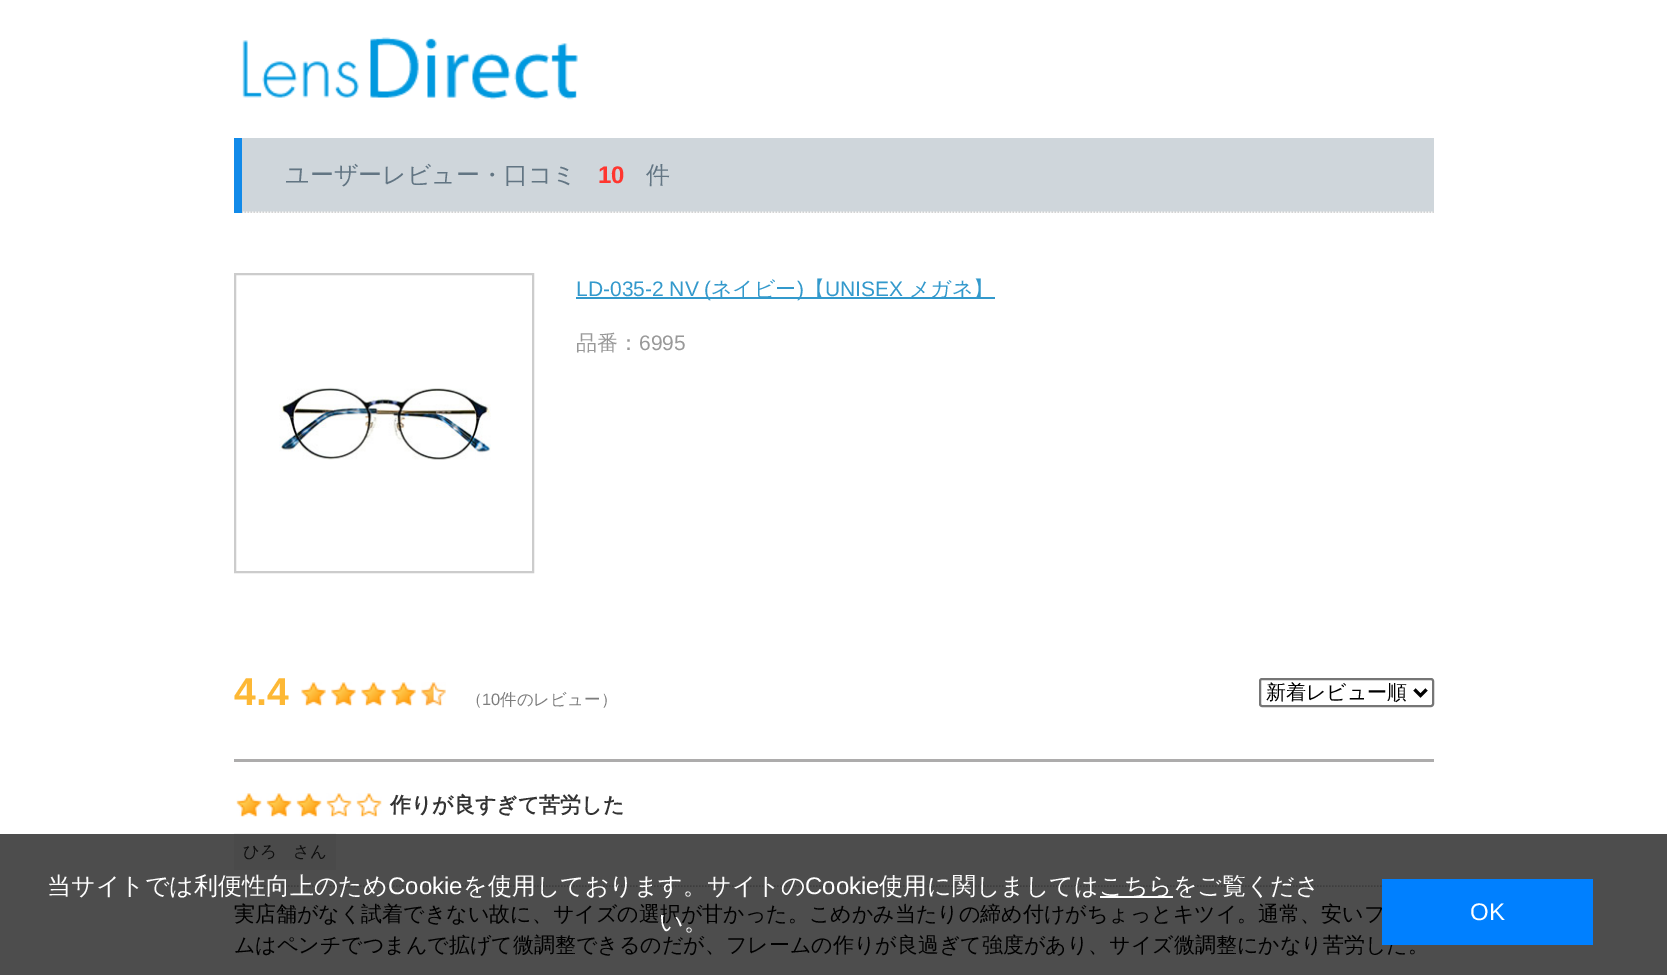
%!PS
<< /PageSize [1667 975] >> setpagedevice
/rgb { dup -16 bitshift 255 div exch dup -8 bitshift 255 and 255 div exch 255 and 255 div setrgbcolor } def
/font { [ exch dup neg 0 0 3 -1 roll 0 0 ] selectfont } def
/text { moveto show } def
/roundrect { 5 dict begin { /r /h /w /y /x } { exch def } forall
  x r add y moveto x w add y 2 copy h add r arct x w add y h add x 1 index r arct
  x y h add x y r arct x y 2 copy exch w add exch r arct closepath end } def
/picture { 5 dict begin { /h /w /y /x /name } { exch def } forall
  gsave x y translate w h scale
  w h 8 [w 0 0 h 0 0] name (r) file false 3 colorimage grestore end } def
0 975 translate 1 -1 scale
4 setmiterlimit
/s1 { /WenQuanYiZenHei-Medium 24 font 16#627583 rgb } def
/s2 { /LiberationSans-Bold 24 font 16#FF362F rgb } def
/s3 { /LiberationSans-Regular 21 font 16#3399CC rgb } def
/s4 { /WenQuanYiZenHei-Medium 21 font 16#3399CC rgb } def
/s5 { /WenQuanYiZenHei-Medium 21 font 16#999999 rgb } def
/s6 { /LiberationSans-Regular 21 font 16#999999 rgb } def
/s7 { /LiberationSans-Bold 39 font 16#FDB835 rgb } def
/s8 { /WenQuanYiZenHei-Medium 16.5 font 16#7D7D7D rgb } def
/s9 { /LiberationSans-Regular 16.5 font 16#7D7D7D rgb } def
/s10 { /WenQuanYiZenHei-Medium 20 font 16#000000 rgb } def
/s11 { /WenQuanYiZenHei-Bold 21 font 16#333333 rgb } def
/s12 { /WenQuanYiZenHei-Medium 16.5 font 16#0F0F0F rgb } def
/s13 { /WenQuanYiZenHei-Medium 21 font 16#000000 rgb } def
/s14 { /WenQuanYiZenHei-Medium 24 font 16#FFFFFF rgb } def
/s15 { /LiberationSans-Regular 24 font 16#FFFFFF rgb } def
16#FFFFFF rgb
0 0 1667 975 rectfill
16#4D4D4D rgb
0 834 1667 141 rectfill
(pic1.raw) 242 37 336 63 picture
16#CFD6DB rgb
242 138 1192 74 rectfill
(pic2.raw) 242 211 1192 2 picture
16#128AE9 rgb
234 138 8 75 rectfill
s1
(ユーザーレビュー・口コミ) 285 183 text
s2
(10) 598 183 text
s1
(件) 646 183 text
16#CCCCCC rgb
2 setlinewidth
235 274 298 298 rectstroke
(pic3.raw) 279 387 212 73 picture
16#3399CC rgb
576 297 419 2 rectfill
s3
(LD-035-2 NV \() 576 296 text
s4
(ネイビー) 711 296 text
s3
(\)) 797 296 text
s4
(【) 804 296 text
s3
(UNISEX) 825 296 text
s4
(メガネ】) 909 296 text
s5
(品番：) 576 350 text
s6
(6995) 639 350 text
s7
(4.4) 234 705 text
(pic4.raw) 301 682 25 24 picture
(pic5.raw) 331 682 25 24 picture
(pic4.raw) 361 682 25 24 picture
(pic4.raw) 391 682 25 24 picture
(pic6.raw) 421 682 25 24 picture
s8
(（) 466 705 text
s9
(10) 482 705 text
s8
(件のレビュー）) 500 705 text
16#767676 rgb
1260 679 173 27 2 roundrect stroke
16#000000 rgb
3 setlinewidth
1414.5 689.5 moveto 1420.5 695.5 lineto 1426.5 689.5 lineto stroke
s10
(新着レビュー順) 1266 699 text
16#ADACAC rgb
234 759 1200 3 rectfill
(pic7.raw) 236 793 26 24 picture
(pic8.raw) 266 793 26 24 picture
(pic9.raw) 296 793 26 24 picture
(pic10.raw) 326 793 26 24 picture
(pic10.raw) 356 793 26 24 picture
s11
(作りが良すぎて苦労した) 390 812 text
16#F6F6F6 rgb
234 833 102 1 rectfill
16#4A4A4A rgb
234 834 102 36 rectfill
s12
(ひろ　さん) 243 857 text
16#3D3D3D rgb
1.5 setlinewidth
[1.5 1.5] 0 setdash
234 886 moveto 1434 886 lineto stroke
s13
(実店舗がなく試着できない故に、サイズの選択が甘かった。こめかみ当たりの締め付けがちょっとキツイ。通常、安いフ) 234 921 text
(ムはペンチでつまんで拡げて微調整できるのだが、フレームの作りが良過ぎて強度があり、サイズ微調整にかなり苦労した。) 234 952 text
s14
(当サイトでは利便性向上のため) 47 894 text
s15
(Cookie) 388 894 text
s14
(を使用しております。サイトの) 463 894 text
s15
(Cookie) 805 894 text
s14
(使用に関しましては) 879 894 text
1100 896 73 2 rectfill
(こちらをご覧くださ) 1099 894 text
(い。) 659 930 text
16#0080FF rgb
1382 879 211 66 rectfill
s15
(OK) 1470 920 text
showpage
